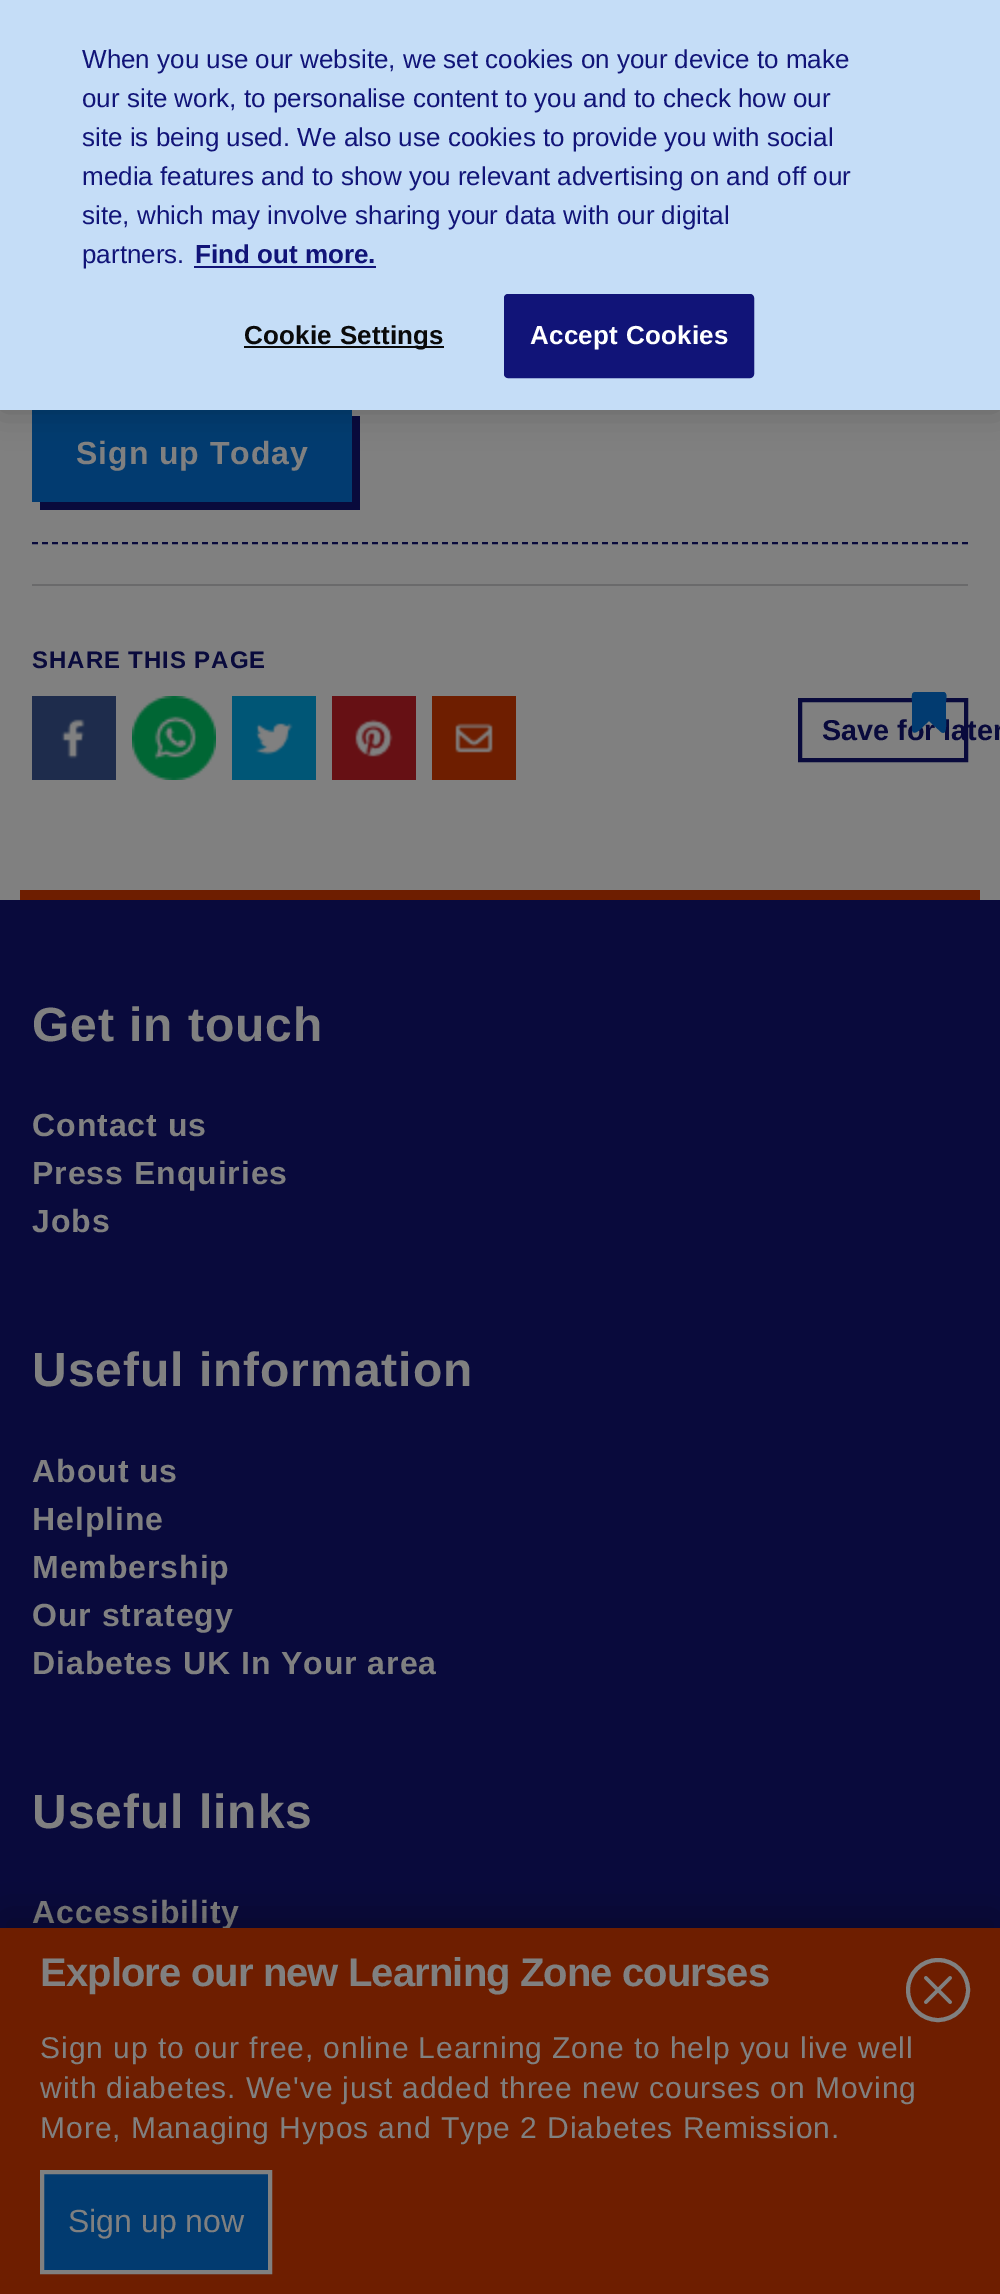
%!PS
<< /PageSize [1000 2294] /PageUsesTransparency true >> setpagedevice
/rgb { dup -16 bitshift 255 div exch dup -8 bitshift 255 and 255 div exch 255 and 255 div setrgbcolor } def
/font { [ exch dup neg 0 0 3 -1 roll 0 0 ] selectfont } def
/text { moveto show } def
/alpha { dup .setfillconstantalpha .setstrokeconstantalpha } def
/circle { newpath 0 360 arc closepath } def
/roundrect { 5 dict begin { /r /h /w /y /x } { exch def } forall
  x r add y moveto x w add y 2 copy h add r arct x w add y h add x 1 index r arct
  x y h add x y r arct x y 2 copy exch w add exch r arct closepath end } def
/shadow { 12 dict begin { /a /b /q /h /w /y /x } { exch def } forall gsave /was 0 def
  9 -2 -9 { dup b mul 4 div /e exch def 1 sub .425 mul 2.718 exch exp 1 add a .99 .min exch div /now exch def
    1 1 now sub 1 was sub div sub alpha /was now def
    w h .min e 2 mul add 0 gt { x e sub y e sub w e 2 mul add h e 2 mul add
      q e add b .6 mul add w h .min 2 div e add .min 0 .max roundrect fill } if } for grestore end } def
/picture { 5 dict begin { /h /w /y /x /name } { exch def } forall
  gsave x y translate w h scale
  w h 8 [w 0 0 h 0 0] name (r) file false 3 colorimage grestore end } def
0 .pushpdf14devicefilter
0 2294 translate 1 -1 scale
4 setmiterlimit
/s1 { /LiberationSans-Regular 26 font 16#111478 rgb } def
/s2 { /LiberationSans-Bold 26 font 16#111478 rgb } def
/s3 { /LiberationSans-Bold 28.75 font 16#090A3C rgb } def
/s4 { /LiberationSans-Regular 32 font 16#808080 rgb } def
16#090A3C rgb
0 0 1000 2294 rectfill
16#808080 rgb
0 410 1000 490 rectfill
16#090A3C rgb
40 502 moveto 40 510 lineto 360 510 lineto 360 416 lineto 352 416 lineto 352 502 lineto closepath fill
16#023B70 rgb
32 410 320 92 rectfill
16#000000 rgb
0 0 1000 410 0 18 0.2 shadow
16#C5DDF7 rgb
0 0 1000 410 rectfill
s1
(When you use our website, we set cookies on your device to make) 82 68 text
(our site work, to personalise content to you and to check how our) 82 107 text
(site is being used. We also use cookies to provide you with social) 82 146 text
(media features and to show you relevant advertising on and off our) 82 185 text
(site, which may involve sharing your data with our digital) 82 224 text
(partners.) 82 263 text
s2
(Find out more.) 195 263 text
194 266 182 2 rectfill
16#0A0A0A rgb
244 346 200 2 rectfill
244 344 moveto 0.25 0 (Cookie Settings) ashow
16#111478 rgb
505 295 248 82 3 roundrect gsave fill grestore
2 setlinewidth
stroke
16#FFFFFF rgb
530 344 moveto 0.25 0 (Accept Cookies) ashow
/LiberationSans-Bold 32 font
16#808080 rgb
76 464 moveto 0.95 0 (Sign up Today) ashow
16#090A3C rgb
[6 4] 0 setdash
32 543 moveto 968 543 lineto stroke
16#6A6A6B rgb
32 584 936 2 rectfill
/LiberationSans-Bold 24 font
16#090A3C rgb
32 668 moveto 0.95 0 (SHARE THIS PAGE) ashow
(pic1.raw) 32 696 84 84 picture
(pic2.raw) 132 696 84 84 picture
(pic3.raw) 232 696 84 84 picture
(pic4.raw) 332 696 84 84 picture
(pic5.raw) 432 696 84 84 picture
4 setlinewidth
[] 0 setdash
800 700 166 60 rectstroke
s3
(Save for later) 822 740 text
16#023B70 rgb
943 692 moveto 948 692 946 699 946 701 curveto 946 718 lineto 946 726 947 736 941 732 curveto 929 721 lineto 923 726 914 738 912 730 curveto 912 701 lineto 912 692 911 692 920 692 curveto closepath fill
16#6E1E00 rgb
20 890 960 10 rectfill
/LiberationSans-Bold 48 font
16#808080 rgb
32 1041 moveto 0.95 0 (Get in touch) ashow
/LiberationSans-Bold 32 font
32 1136 moveto 0.95 0 (Contact us) ashow
32 1184 moveto 0.95 0 (Press Enquiries) ashow
32 1232 moveto 0.95 0 (Jobs) ashow
/LiberationSans-Bold 48 font
32 1386 moveto 0.95 0 (Useful information) ashow
/LiberationSans-Bold 32 font
32 1482 moveto 0.95 0 (About us) ashow
32 1530 moveto 0.95 0 (Helpline) ashow
32 1578 moveto 0.95 0 (Membership) ashow
32 1626 moveto 0.95 0 (Our strategy) ashow
32 1674 moveto 0.95 0 (Diabetes UK In Your area) ashow
/LiberationSans-Bold 48 font
32 1828 moveto 0.95 0 (Useful links) ashow
/LiberationSans-Bold 32 font
32 1923 moveto 0.95 0 (Accessibility) ashow
16#000000 rgb
0 1912 1000 366 0 24 0.24 shadow
16#6E1E00 rgb
0 1928 1000 366 rectfill
/LiberationSans-Bold 40 font
16#808080 rgb
40 1986 moveto -0.9 0 (Explore our new Learning Zone courses) ashow
/LiberationSans-Regular 30 font
40 2058 moveto 0.95 0 (Sign up to our free, online Learning Zone to help you live well) ashow
40 2098 moveto 0.95 0 (with diabetes. We've just added three new courses on Moving) ashow
40 2138 moveto 0.95 0 (More, Managing Hypos and Type 2 Diabetes Remission.) ashow
(pic6.raw) 924 1976 28 28 picture
938 1990 30 circle stroke
16#023B70 rgb
42 2172 moveto 270 2172 lineto 270 2272 lineto 42 2272 lineto closepath gsave fill grestore
16#808080 rgb
stroke
s4
(Sign up now) 68 2232 text
.poppdf14devicefilter showpage
